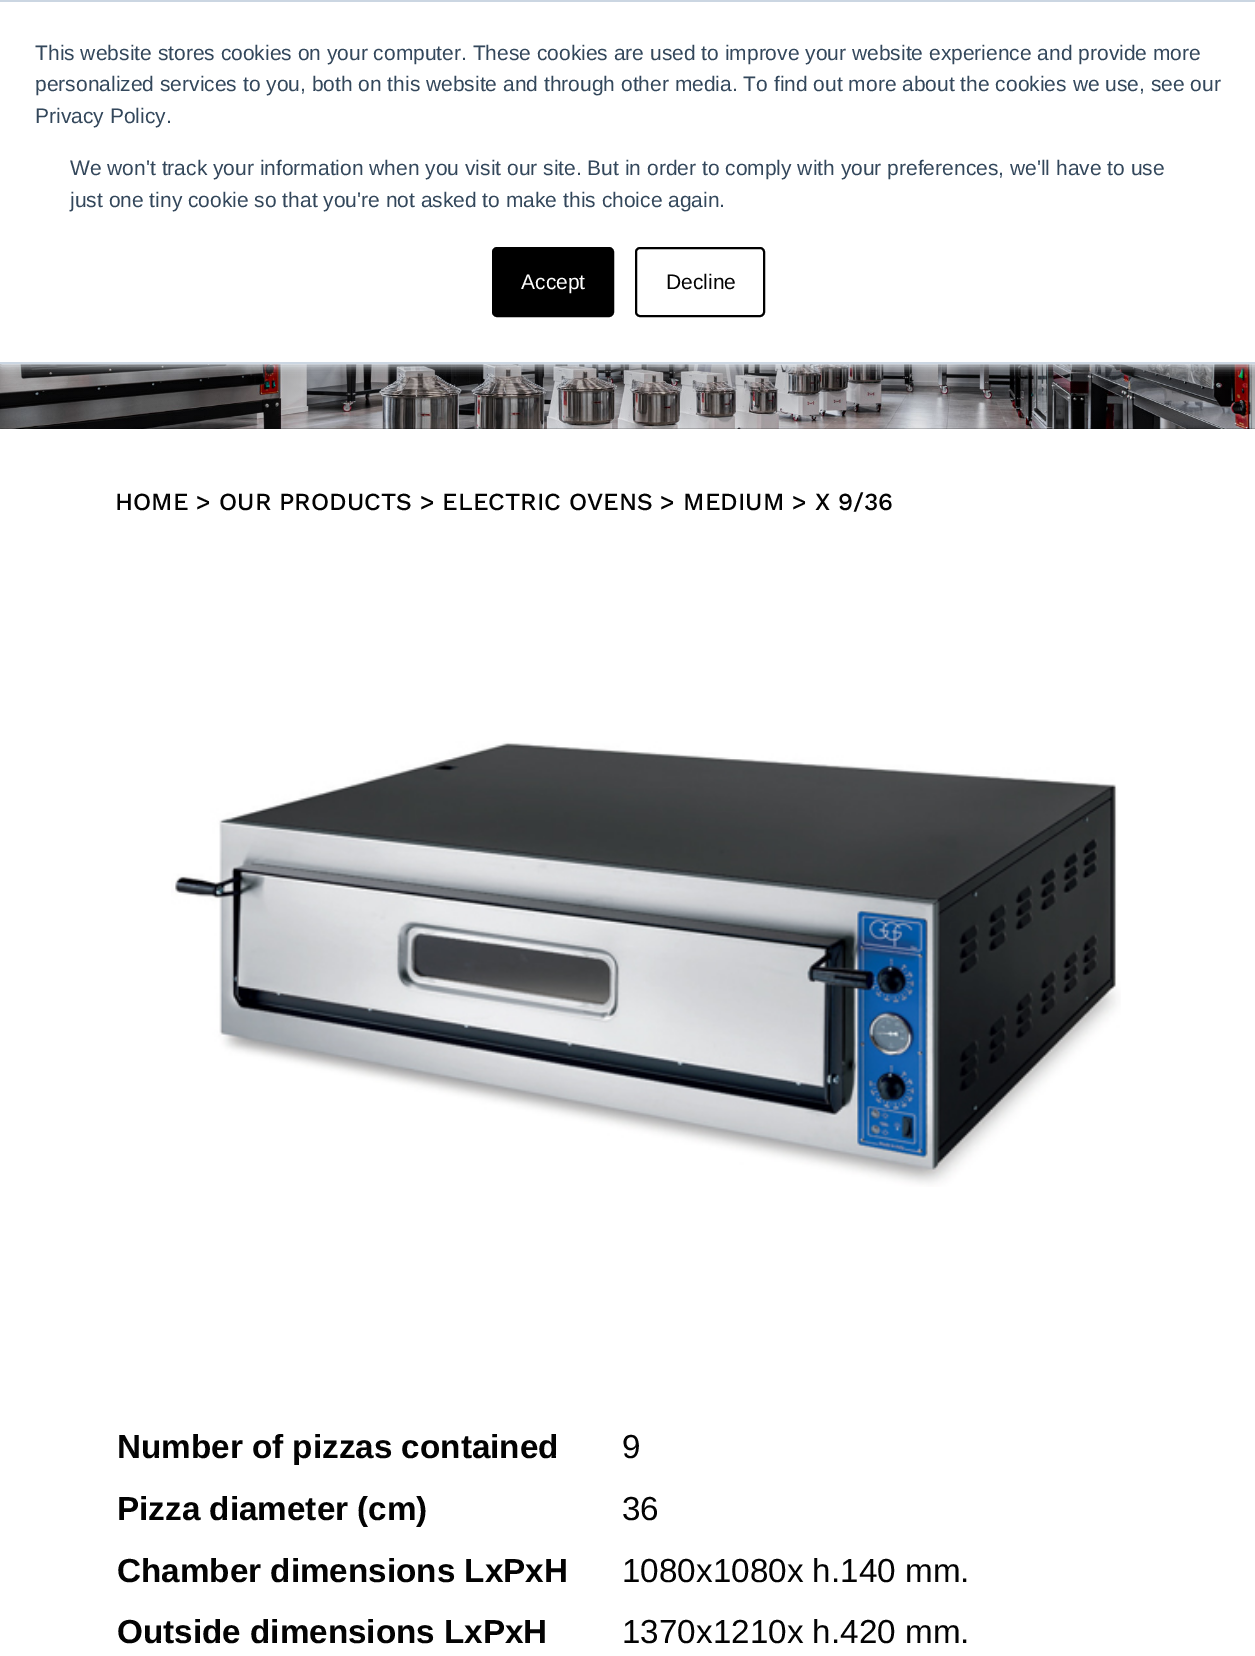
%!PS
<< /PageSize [1255 1656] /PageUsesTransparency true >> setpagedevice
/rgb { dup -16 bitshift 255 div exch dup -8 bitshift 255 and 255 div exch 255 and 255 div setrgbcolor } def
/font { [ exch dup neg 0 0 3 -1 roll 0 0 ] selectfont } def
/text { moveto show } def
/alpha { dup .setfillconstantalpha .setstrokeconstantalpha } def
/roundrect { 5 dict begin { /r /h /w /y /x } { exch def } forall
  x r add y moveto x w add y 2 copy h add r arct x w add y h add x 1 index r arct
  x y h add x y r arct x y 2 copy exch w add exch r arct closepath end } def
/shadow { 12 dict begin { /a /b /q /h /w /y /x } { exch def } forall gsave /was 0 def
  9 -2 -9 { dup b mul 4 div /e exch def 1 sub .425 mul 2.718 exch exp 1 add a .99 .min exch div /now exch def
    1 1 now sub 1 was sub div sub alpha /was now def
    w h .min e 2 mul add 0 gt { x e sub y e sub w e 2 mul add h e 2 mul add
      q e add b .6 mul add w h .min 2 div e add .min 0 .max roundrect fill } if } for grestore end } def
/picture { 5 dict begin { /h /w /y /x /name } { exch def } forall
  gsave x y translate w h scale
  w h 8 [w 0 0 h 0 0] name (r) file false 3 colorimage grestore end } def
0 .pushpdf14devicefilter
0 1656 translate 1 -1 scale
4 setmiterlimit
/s1 { /LiberationSans-Regular 21 font 16#33475B rgb } def
/s2 { /LiberationSans-Regular 21 font 16#FFFFFF rgb } def
/s3 { /LiberationSans-Regular 21 font 16#030303 rgb } def
/s4 { /WorkSans-Medium 24.5 font 16#030303 rgb } def
/s5 { /LiberationSans-Bold 33.25 font 16#030303 rgb } def
/s6 { /LiberationSans-Regular 33.25 font 16#030303 rgb } def
16#FFFFFF rgb
0 0 1255 1656 rectfill
(pic1.raw) 0 364 1255 65 picture
16#EAF0F6 rgb
0 2 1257 364 0 4.5 1 shadow
16#FFFFFF rgb
0 2 1255 360 rectfill
16#CBD6E2 rgb
0 0 1255 2 rectfill
0 362 1255 2 rectfill
s1
(This website stores cookies on your computer. These cookies are used to improve your website experience and provide more) 35 60 text
(personalized services to you, both on this website and through other media. To find out more about the cookies we use, see our) 35 91 text
(Privacy Policy.) 35 123 text
(We won't track your information when you visit our site. But in order to comply with your preferences, we'll have to use) 70 175 text
(just one tiny cookie so that you're not asked to make this choice again.) 70 207 text
16#000000 rgb
493 248 120 68 4 roundrect gsave fill grestore
2 setlinewidth
stroke
s2
(Accept) 521 289 text
16#000000 rgb
636 248 128 68 4 roundrect stroke
s3
(Decline) 666 289 text
s4
(HOME > OUR PRODUCTS > ELECTRIC OVENS > MEDIUM > X 9/36) 115 510 text
(pic2.raw) 171 741 950 446 picture
s5
(Number of pizzas contained) 117 1458 text
s6
(9) 622 1458 text
s5
(Pizza diameter \(cm\)) 117 1520 text
s6
(36) 622 1520 text
s5
(Chamber dimensions LxPxH) 117 1582 text
s6
(1080x1080x h.140 mm.) 622 1582 text
s5
(Outside dimensions LxPxH) 117 1643 text
s6
(1370x1210x h.420 mm.) 622 1643 text
.poppdf14devicefilter showpage
